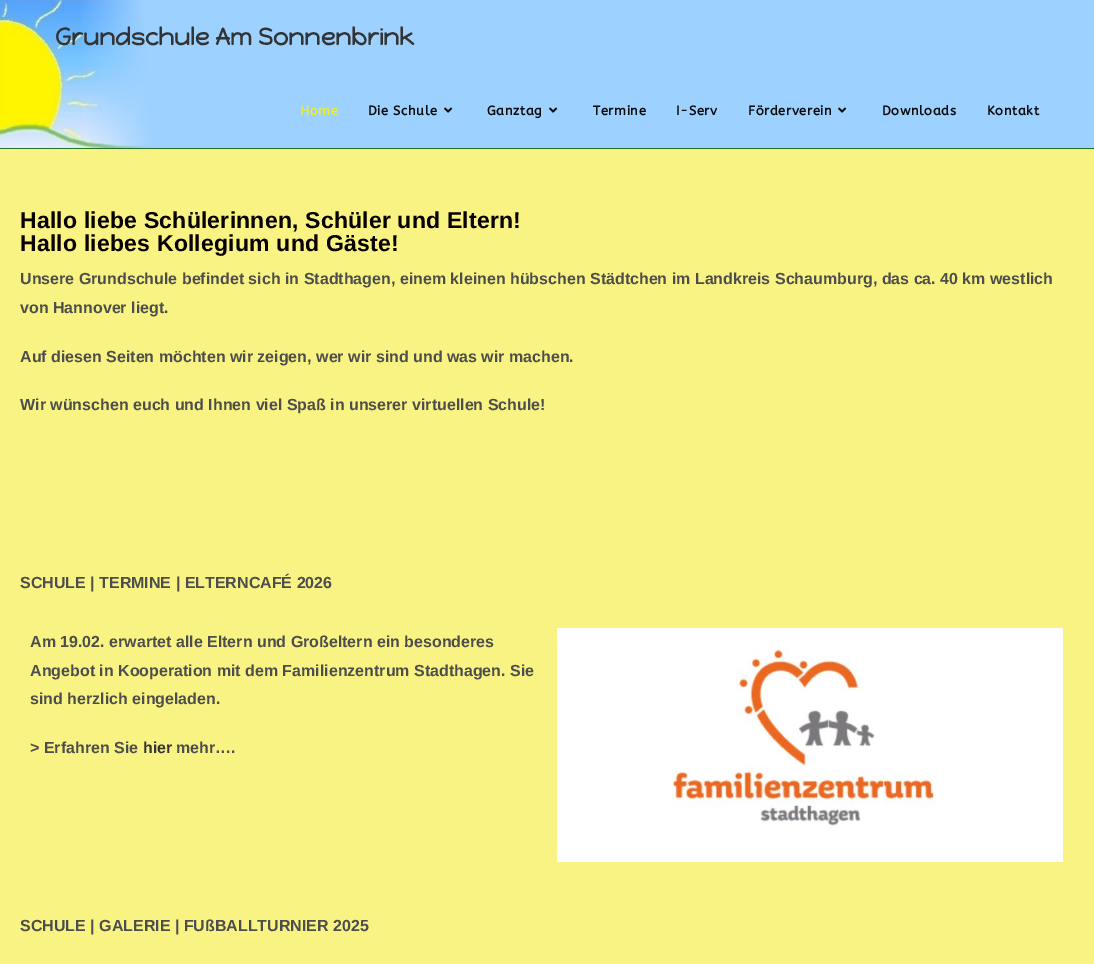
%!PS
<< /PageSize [1094 964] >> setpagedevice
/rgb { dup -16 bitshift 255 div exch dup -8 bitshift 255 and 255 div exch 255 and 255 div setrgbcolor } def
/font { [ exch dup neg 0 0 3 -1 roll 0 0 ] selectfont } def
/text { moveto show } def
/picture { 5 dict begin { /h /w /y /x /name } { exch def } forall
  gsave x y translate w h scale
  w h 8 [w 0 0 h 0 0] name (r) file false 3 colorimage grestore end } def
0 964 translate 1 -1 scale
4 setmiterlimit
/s1 { /HappyMonkey-Bold 24 font 16#333333 rgb } def
/s2 { /LiberationSans-Bold 16 font 16#4D4D4D rgb } def
/s3 { /LiberationSans-Bold 16 font 16#333333 rgb } def
16#FFFFFF rgb
0 0 1094 964 rectfill
gsave 0 149 moveto 1094 149 lineto 1094 964 lineto 0 964 lineto closepath clip newpath
<< /ShadingType 2 /ColorSpace /DeviceRGB /Coords [547 0 547 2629] /Extend [true true] /Function << /FunctionType 3 /Domain [0 1] /Functions [<< /FunctionType 2 /Domain [0 1] /C0 [0.973 0.953 0.51] /C1 [0.973 0.953 0.51] /N 1 >> << /FunctionType 2 /Domain [0 1] /C0 [0.973 0.953 0.51] /C1 [1 1 1] /N 1 >>] /Bounds [0.47] /Encode [0 1 0 1] >> >> shfill grestore
16#9DD1FF rgb
151 0 943 148 rectfill
(pic1.raw) 0 0 151 148 picture
16#227221 rgb
0 148 1094 1 rectfill
s1
(Grundschule Am Sonnenbrink) 55 45 text
/ABeeZee-Bold 13 font
16#EEEE22 rgb
300 115 moveto 0.6 0 (Home) ashow
16#0A0A0A rgb
368 115 moveto 0.6 0 (Die Schule) ashow
(pic2.raw) 444 107 9 6 picture
487 115 moveto 0.6 0 (Ganztag) ashow
(pic2.raw) 549 107 9 6 picture
593 115 moveto 0.6 0 (Termine) ashow
676 115 moveto 0.6 0 (I-Serv) ashow
748 115 moveto 0.6 0 (Förderverein) ashow
(pic2.raw) 838 107 9 6 picture
882 115 moveto 0.6 0 (Downloads) ashow
987 115 moveto 0.6 0 (Kontakt) ashow
/LiberationSans-Bold 23 font
16#060000 rgb
20 228 moveto 0.2 0 (Hallo liebe Schülerinnen, Schüler und Eltern!) ashow
20 251 moveto 0.2 0 (Hallo liebes Kollegium und Gäste!) ashow
s2
(Unsere Grundschule befindet sich in Stadthagen, einem kleinen hübschen Städtchen im Landkreis Schaumburg, das ca. 40 km westlich) 20 284 text
(von Hannover liegt.) 20 313 text
(Auf diesen Seiten möchten wir zeigen, wer wir sind und was wir machen.) 20 362 text
(Wir wünschen euch und Ihnen viel Spaß in unserer virtuellen Schule!) 20 410 text
(SCHULE | TERMINE | ELTERNCAFÉ 2026) 20 588 text
(Am 19.02. erwartet alle Eltern und Großeltern ein besonderes) 30 647 text
(Angebot in Kooperation mit dem Familienzentrum Stadthagen. Sie) 30 676 text
(sind herzlich eingeladen.) 30 704 text
(> Erfahren Sie) 30 753 text
s3
(hier) 143 753 text
s2
(mehr….) 176 753 text
(pic3.raw) 557 628 506 234 picture
(SCHULE | GALERIE | FUßBALLTURNIER 2025) 20 931 text
showpage
